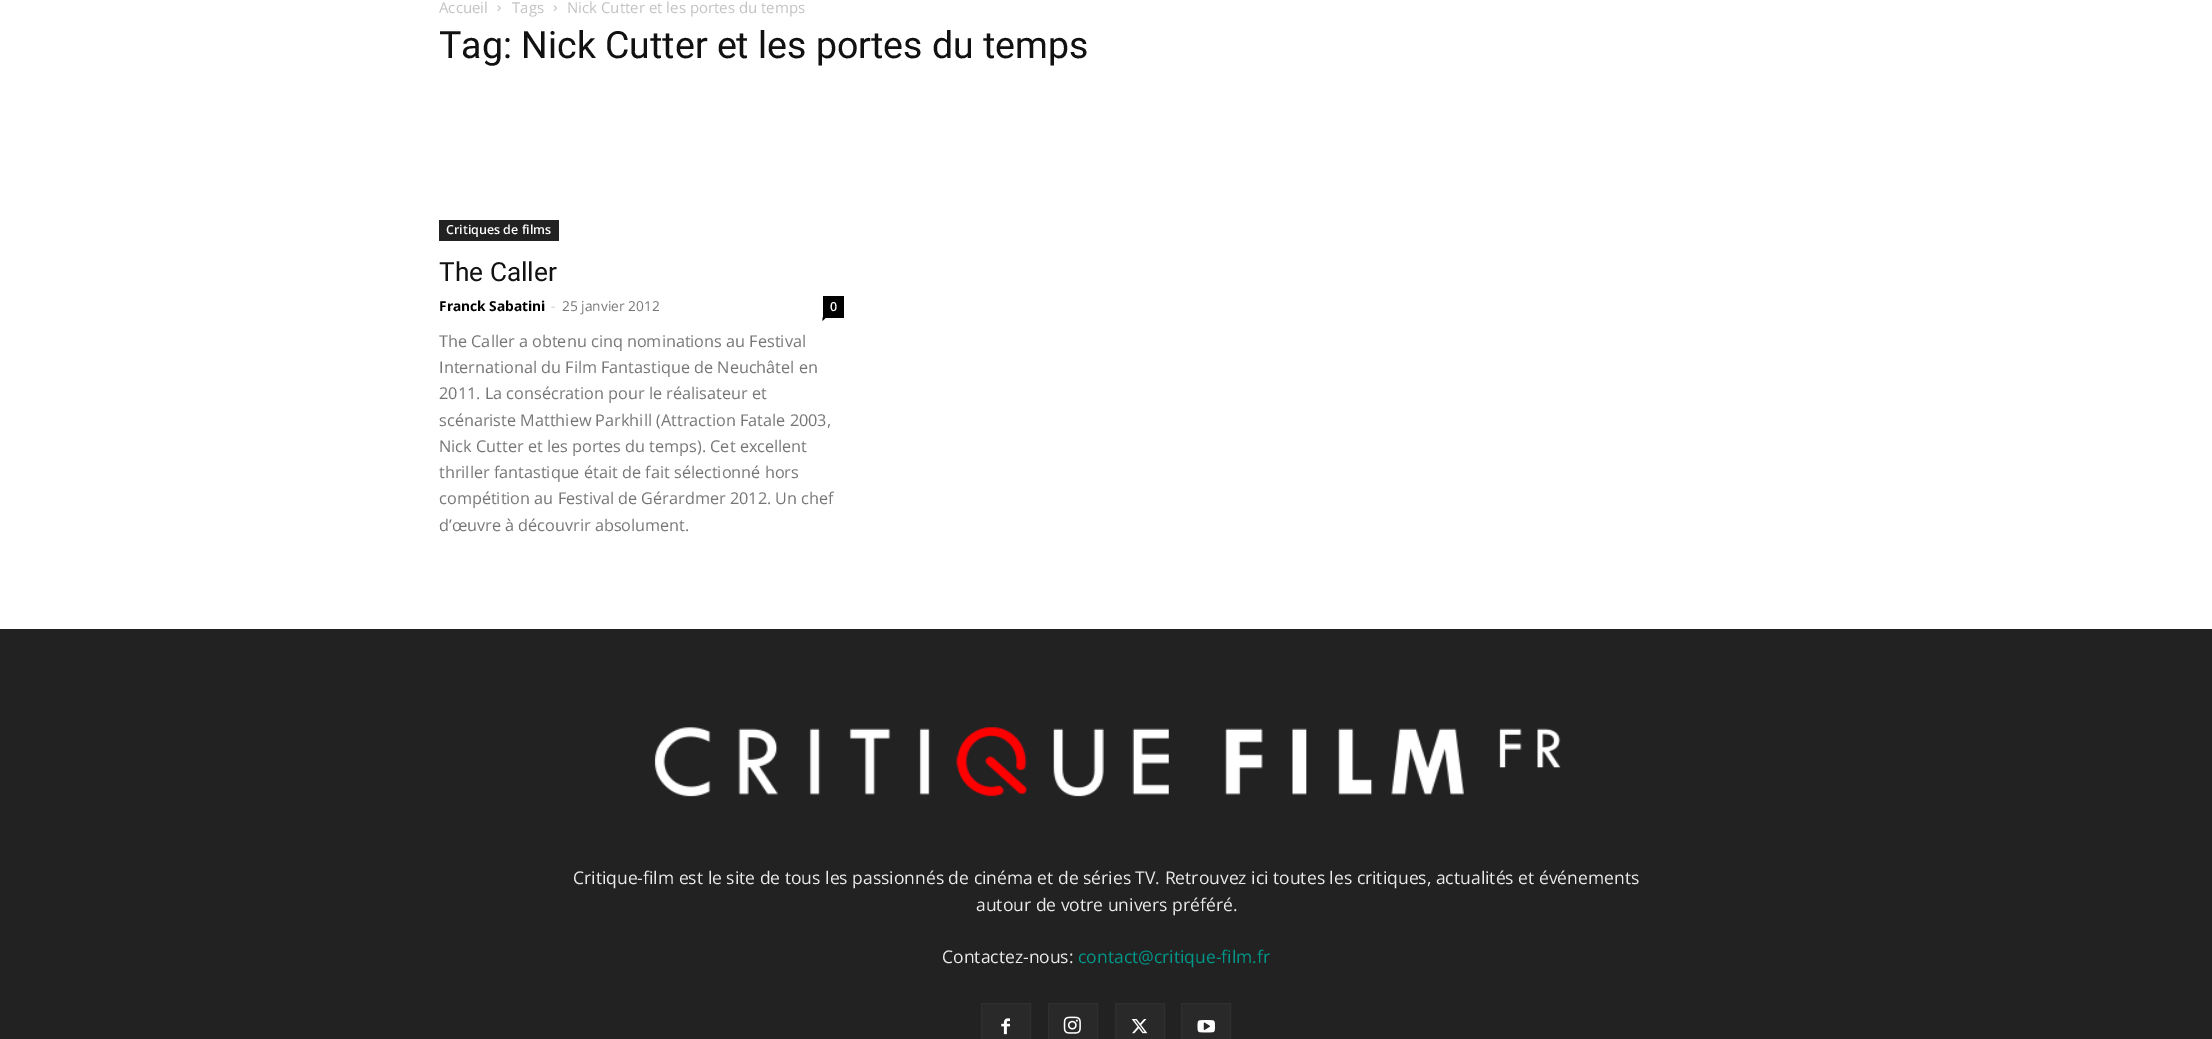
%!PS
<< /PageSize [2212 1039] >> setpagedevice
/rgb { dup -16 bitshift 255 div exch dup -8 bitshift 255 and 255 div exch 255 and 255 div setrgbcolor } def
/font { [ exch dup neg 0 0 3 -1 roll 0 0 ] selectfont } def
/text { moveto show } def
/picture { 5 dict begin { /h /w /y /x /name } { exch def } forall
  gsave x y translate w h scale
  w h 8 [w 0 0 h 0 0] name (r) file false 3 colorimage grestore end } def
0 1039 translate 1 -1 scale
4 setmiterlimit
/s1 { /OpenSans-Regular 15 font 16#C3C3C3 rgb } def
/s2 { /Roboto-Regular 37.5 font 16#111111 rgb } def
/s3 { /OpenSans-SemiBold 12.5 font 16#FFFFFF rgb } def
/s4 { /Roboto-Regular 26.25 font 16#111111 rgb } def
/s5 { /OpenSans-Bold 13.75 font 16#000000 rgb } def
/s6 { /OpenSans-Regular 13.75 font 16#CCCCCC rgb } def
/s7 { /OpenSans-Regular 13.75 font 16#767676 rgb } def
/s8 { /OpenSans-Regular 16.25 font 16#767676 rgb } def
/s9 { /OpenSans-Regular 17.5 font 16#EAEAEA rgb } def
/s10 { /OpenSans-Regular 17.5 font 16#009688 rgb } def
16#FFFFFF rgb
0 0 2212 1039 rectfill
s1
(Accueil) 439 13 text
(pic1.raw) 497 5 4 6 picture
(Tags) 512 13 text
(pic2.raw) 553 5 4 6 picture
(Nick Cutter et les portes du temps) 567 13 text
s2
(Tag: Nick Cutter et les portes du temps) 439 58 text
16#222222 rgb
439 220 120 21 rectfill
s3
(Critiques de films) 446 234 text
s4
(The Caller) 439 281 text
s5
(Franck Sabatini) 439 311 text
s6
(-) 551 311 text
s7
(25 janvier 2012) 562 311 text
16#000000 rgb
823 296 21 22 rectfill
s3
(0) 830 311 text
16#000000 rgb
822.5 317.5 moveto 826 317.5 lineto 822.5 321 lineto closepath fill
s8
(The Caller a obtenu cinq nominations au Festival) 439 347 text
(International du Film Fantastique de Neuchâtel en) 439 373 text
(2011. La consécration pour le réalisateur et) 439 399 text
(scénariste Matthiew Parkhill \(Attraction Fatale 2003,) 439 426 text
(Nick Cutter et les portes du temps\). Cet excellent) 439 452 text
(thriller fantastique était de fait sélectionné hors) 439 478 text
(compétition au Festival de Gérardmer 2012. Un chef) 439 504 text
(d’œuvre à découvrir absolument.) 439 531 text
16#222222 rgb
0 629 2212 410 rectfill
(pic3.raw) 654 727 907 70 picture
s9
(Critique-film est le site de tous les passionnés de cinéma et de séries TV. Retrouvez ici toutes les critiques, actualités et événements) 573 884 text
(autour de votre univers préféré.) 976 911 text
(Contactez-nous:) 942 963 text
s10
(contact@critique-film.fr) 1078 963 text
16#292929 rgb
982 1004 48 35 rectfill
(pic4.raw) 1001 1018 9 17 picture
16#2F2F2F rgb
981.5 1003.5 49 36 rectstroke
16#292929 rgb
1049 1004 48 35 rectfill
(pic5.raw) 1063 1016 18 18 picture
16#2F2F2F rgb
1048.5 1003.5 49 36 rectstroke
16#292929 rgb
1116 1004 48 35 rectfill
(pic6.raw) 1131 1019 17 15 picture
16#2F2F2F rgb
1115.5 1003.5 49 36 rectstroke
16#292929 rgb
1182 1004 48 35 rectfill
(pic7.raw) 1197 1020 18 13 picture
16#2F2F2F rgb
1181.5 1003.5 49 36 rectstroke
showpage
